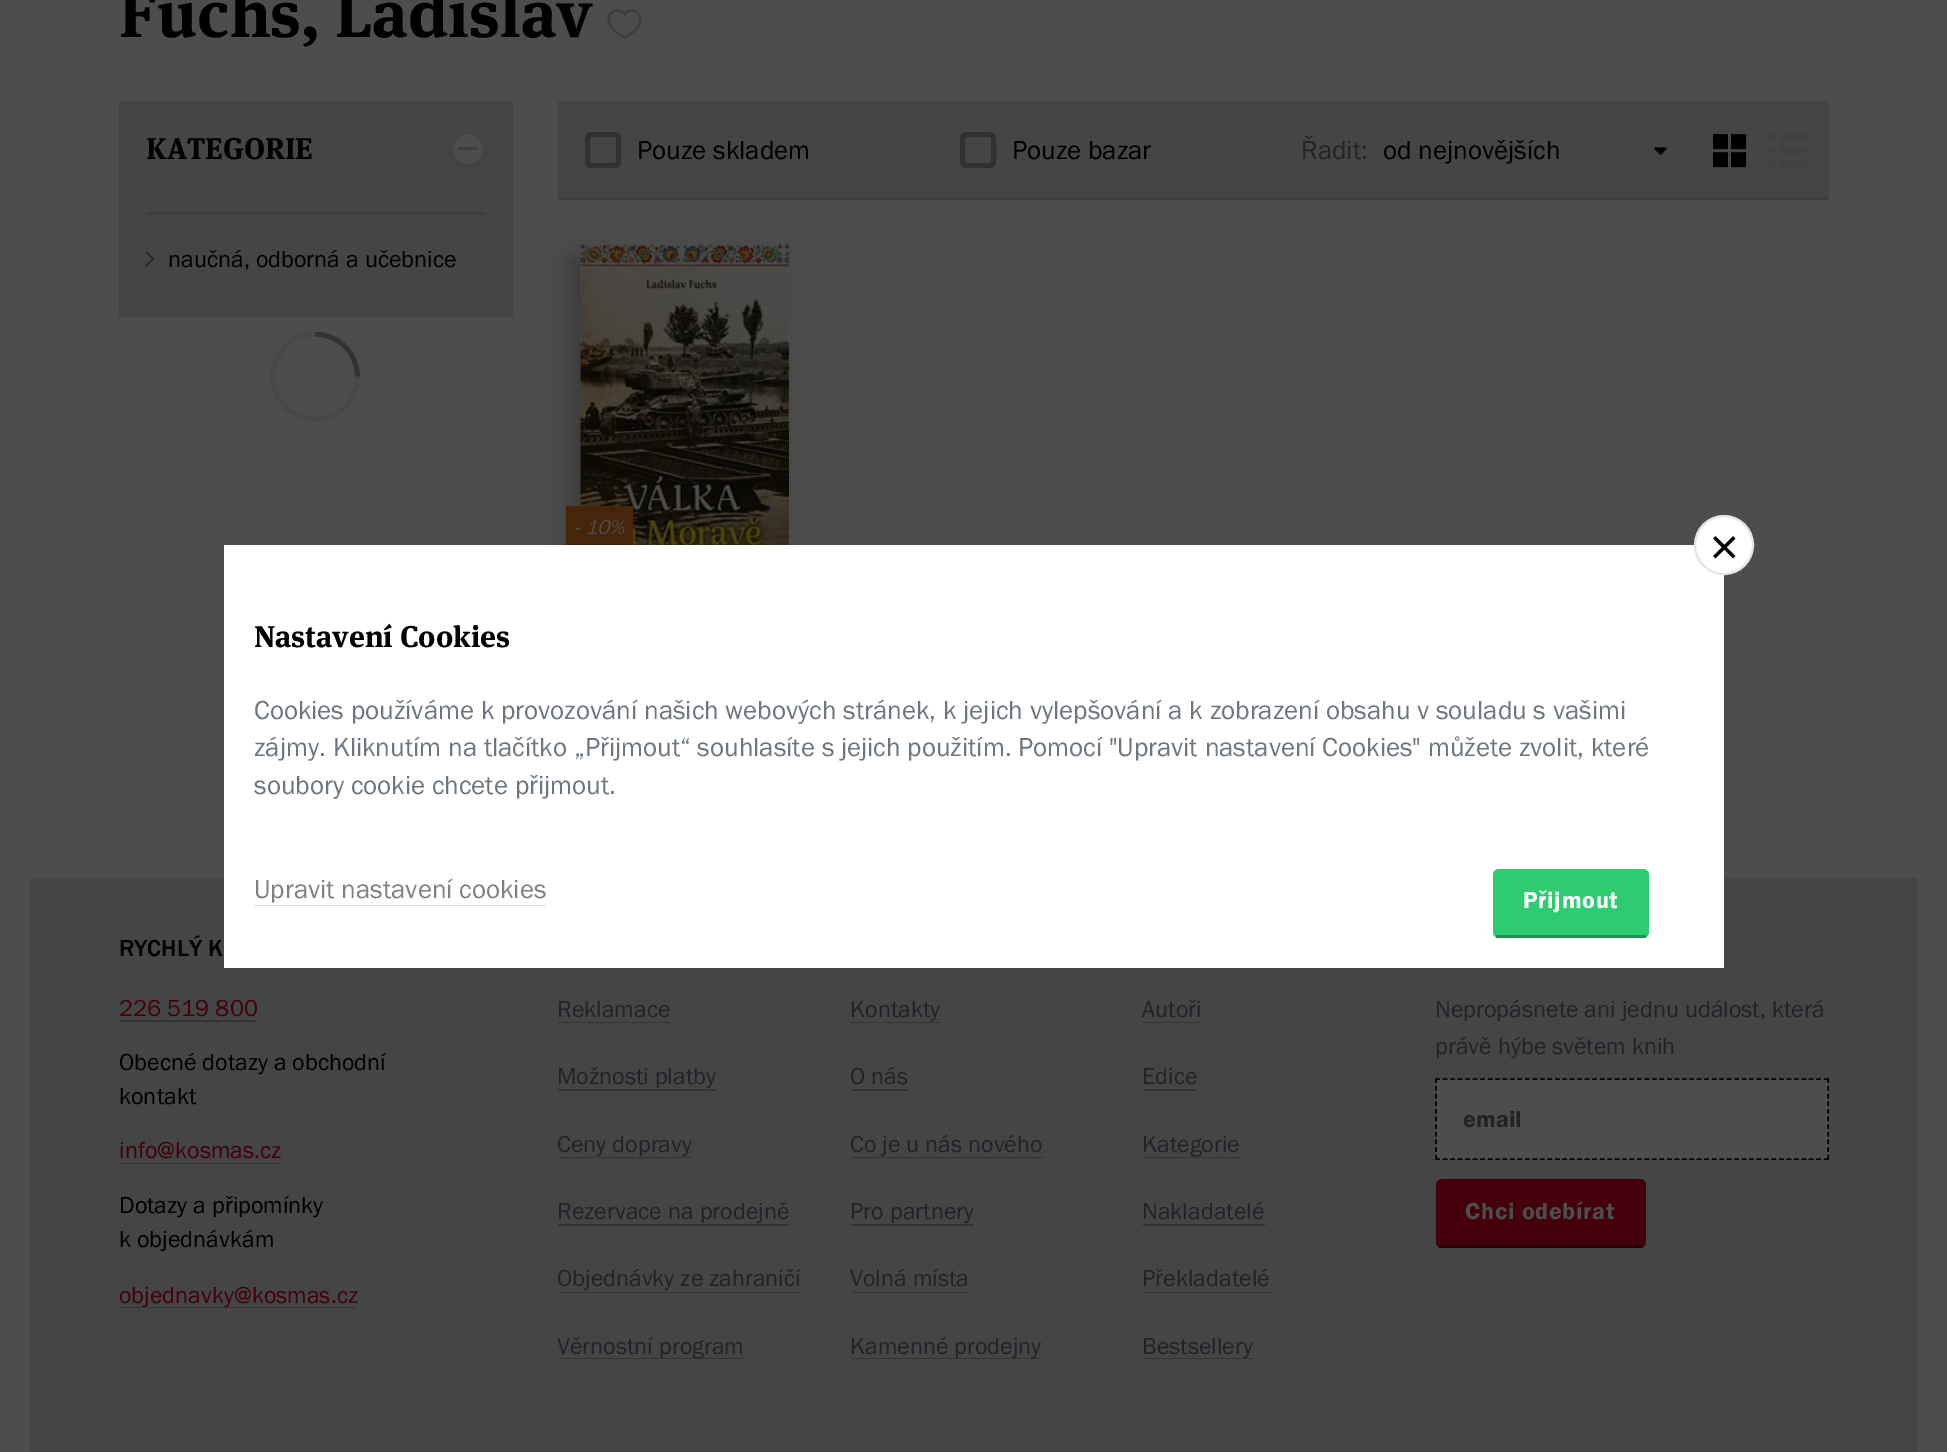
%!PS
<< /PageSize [1947 1452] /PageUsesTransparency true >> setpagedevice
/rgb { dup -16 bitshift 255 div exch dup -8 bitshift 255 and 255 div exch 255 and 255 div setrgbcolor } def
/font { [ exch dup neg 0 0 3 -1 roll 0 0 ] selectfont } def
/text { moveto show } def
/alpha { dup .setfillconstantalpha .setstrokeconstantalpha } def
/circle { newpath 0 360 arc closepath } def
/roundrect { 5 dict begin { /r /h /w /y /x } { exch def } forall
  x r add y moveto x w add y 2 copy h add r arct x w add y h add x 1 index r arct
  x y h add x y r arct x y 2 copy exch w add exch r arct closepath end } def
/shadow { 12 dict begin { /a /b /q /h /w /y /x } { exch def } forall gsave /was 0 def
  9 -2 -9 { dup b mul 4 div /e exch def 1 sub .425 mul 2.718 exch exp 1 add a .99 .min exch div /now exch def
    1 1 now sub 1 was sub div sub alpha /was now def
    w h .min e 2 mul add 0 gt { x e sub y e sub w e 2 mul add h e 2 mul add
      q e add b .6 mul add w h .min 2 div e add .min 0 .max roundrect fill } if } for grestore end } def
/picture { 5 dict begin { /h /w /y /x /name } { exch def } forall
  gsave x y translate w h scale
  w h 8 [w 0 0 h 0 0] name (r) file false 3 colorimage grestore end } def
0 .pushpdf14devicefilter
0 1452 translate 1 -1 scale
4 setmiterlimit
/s1 { /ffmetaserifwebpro-Bold 66 font 16#000000 rgb } def
/s2 { /ffmetaserifwebpro-Bold 30 font 16#000000 rgb } def
/s3 { /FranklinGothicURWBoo-Regular 24 font 16#000000 rgb } def
/s4 { /FranklinGothicURWBoo-Regular 27 font 16#000000 rgb } def
/s5 { /FranklinGothicURWBoo-Regular 27 font 16#212326 rgb } def
/s6 { /FranklinGothicURWBoo-Italic 21 font 16#4D4D4D rgb } def
/s7 { /FranklinGothicURWBoo-Regular 27 font 16#6D767E rgb } def
/s8 { /FranklinGothicURWBoo-Regular 27 font 16#808080 rgb } def
/s9 { /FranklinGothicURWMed-Regular 24 font 16#000000 rgb } def
/s10 { /FranklinGothicURWBoo-Regular 24 font 16#44000B rgb } def
/s11 { /FranklinGothicURWBoo-Regular 24 font 16#212326 rgb } def
/s12 { /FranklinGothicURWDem-Regular 24 font 16#212326 rgb } def
16#4D4D4D rgb
0 0 1947 1452 rectfill
s1
(Fuchs, Ladislav) 119 37 text
(pic1.raw) 607 9 35 30 picture
16#444546 rgb
119 101 394 216 rectfill
s2
(KATEGORIE) 146 159 text
16#4D4D4D rgb
468 149 16.5 circle gsave fill grestore
16#434444 rgb
3 setlinewidth
stroke
16#3D3E3E rgb
458 147 19 3 rectfill
146 212 340 3 rectfill
(pic2.raw) 145 251 9 16 picture
s3
(naučná, odborná a učebnice) 168 267 text
gsave
270 332 90 90 rectclip
16#484848 rgb
4.7 setlinewidth
315 376.5 42.5 circle stroke
16#333333 rgb
357.5 376.5 moveto 357.5 353 338.5 334 315 334 curveto stroke
grestore
16#444546 rgb
558 101 1271 97 rectfill
16#3D3E3E rgb
558 198 1271 2 rectfill
16#303232 rgb
5 setlinewidth
587.5 134.5 31 31 3.5 roundrect stroke
s4
(Pouze skladem) 637 159 text
16#303232 rgb
962.5 134.5 31 31 3.5 roundrect stroke
s4
(Pouze bazar) 1012 159 text
s5
(Řadit:) 1301 159 text
s4
(od nejnovějších) 1383 159 text
(pic3.raw) 1654 147 13 9 picture
(pic4.raw) 1713 134 34 34 picture
(pic5.raw) 1768 134 39 33 picture
570 258 209 329 0 11 0.23 shadow
(pic6.raw) 580 244 209 301 picture
16#45260A rgb
566 506 67 39 rectfill
s6
(- 10%) 574 534 text
16#444546 rgb
30 878 1887 574 rectfill
16#FFFFFF rgb
224 545 1500 423 rectfill
1724 545 29 circle gsave fill grestore
16#E1E5E8 rgb
2 setlinewidth
stroke
(pic7.raw) 1713 536 23 23 picture
s2
(Nastavení Cookies) 254 647 text
s7
(Cookies používáme k provozování našich webových stránek, k jejich vylepšování a k zobrazení obsahu v souladu s vašimi) 254 719 text
(zájmy. Kliknutím na tlačítko „Přijmout“ souhlasíte s jejich použitím. Pomocí "Upravit nastavení Cookies" můžete zvolit, které) 254 756 text
(soubory cookie chcete přijmout.) 254 794 text
s8
(Upravit nastavení cookies) 254 898 text
16#DCDCDD rgb
254 905 292 1 rectfill
16#2ECC71 rgb
1493 869 156 69 6 roundrect fill
16#208F4F rgb
1496 935 150 3 rectfill
/FranklinGothicURWDem-Regular 24 font
16#FFFFFF rgb
1523 908 moveto 0.75 0 (Přijmout) ashow
s9
(RYCHLÝ K) 119 956 text
s10
(226 519 800) 119 1016 text
16#323436 rgb
119 1020 138 2 rectfill
s3
(Obecné dotazy a obchodní) 119 1070 text
(kontakt) 119 1104 text
s10
(info@kosmas.cz) 119 1158 text
16#323436 rgb
119 1163 162 1 rectfill
s3
(Dotazy a připomínky) 119 1213 text
(k objednávkám) 119 1247 text
16#323436 rgb
119 1307 238 1 rectfill
s10
(objednavky@kosmas.cz) 119 1303 text
s11
(Reklamace) 557 1017 text
16#323436 rgb
558 1022 113 1 rectfill
s11
(Možnosti platby) 557 1084 text
16#323436 rgb
558 1089 158 2 rectfill
s11
(Ceny dopravy) 557 1152 text
16#323436 rgb
558 1157 134 1 rectfill
s11
(Rezervace na prodejně) 557 1219 text
16#323436 rgb
558 1224 231 2 rectfill
s11
(Objednávky ze zahraničí) 557 1286 text
16#323436 rgb
558 1292 243 1 rectfill
558 1358 186 1 rectfill
s11
(Věrnostní program) 557 1354 text
(Kontakty) 850 1017 text
16#323436 rgb
851 1022 90 1 rectfill
s11
(O nás) 850 1084 text
16#323436 rgb
851 1089 57 2 rectfill
s11
(Co je u nás nového) 850 1152 text
16#323436 rgb
851 1157 192 1 rectfill
s11
(Pro partnery) 850 1219 text
16#323436 rgb
851 1224 123 2 rectfill
s11
(Volná místa) 850 1286 text
16#323436 rgb
851 1292 118 1 rectfill
851 1358 190 1 rectfill
s11
(Kamenné prodejny) 850 1354 text
(Autoři) 1142 1017 text
16#323436 rgb
1143 1022 59 1 rectfill
s11
(Edice) 1142 1084 text
16#323436 rgb
1143 1089 54 2 rectfill
s11
(Kategorie) 1142 1152 text
16#323436 rgb
1143 1157 98 1 rectfill
s11
(Nakladatelé) 1142 1219 text
16#323436 rgb
1143 1224 122 2 rectfill
s11
(Překladatelé) 1142 1286 text
16#323436 rgb
1143 1292 128 1 rectfill
1143 1358 110 1 rectfill
s11
(Bestsellery) 1142 1354 text
(Nepropásnete ani jednu událost, která) 1435 1017 text
(právě hýbe světem knih) 1435 1054 text
16#4D4D4D rgb
1436 1079 393 81 rectfill
16#000000 rgb
1.5 setlinewidth
[4.5 2.97] 0 setdash
1435.5 1079 moveto 1828.5 1079 lineto stroke
[4.5 3.15] 0 setdash
1828 1078.5 moveto 1828 1159.5 lineto stroke
[4.5 2.97] 0 setdash
1435.5 1159 moveto 1828.5 1159 lineto stroke
[4.5 3.15] 0 setdash
1436 1078.5 moveto 1436 1159.5 lineto stroke
s12
(email) 1463 1127 text
16#44000B rgb
1436 1179 210 69 6 roundrect fill
16#250006 rgb
1439 1245 204 3 rectfill
16#4D4D4D rgb
1465 1219 moveto 0.75 0 (Chci odebírat) ashow
.poppdf14devicefilter showpage
